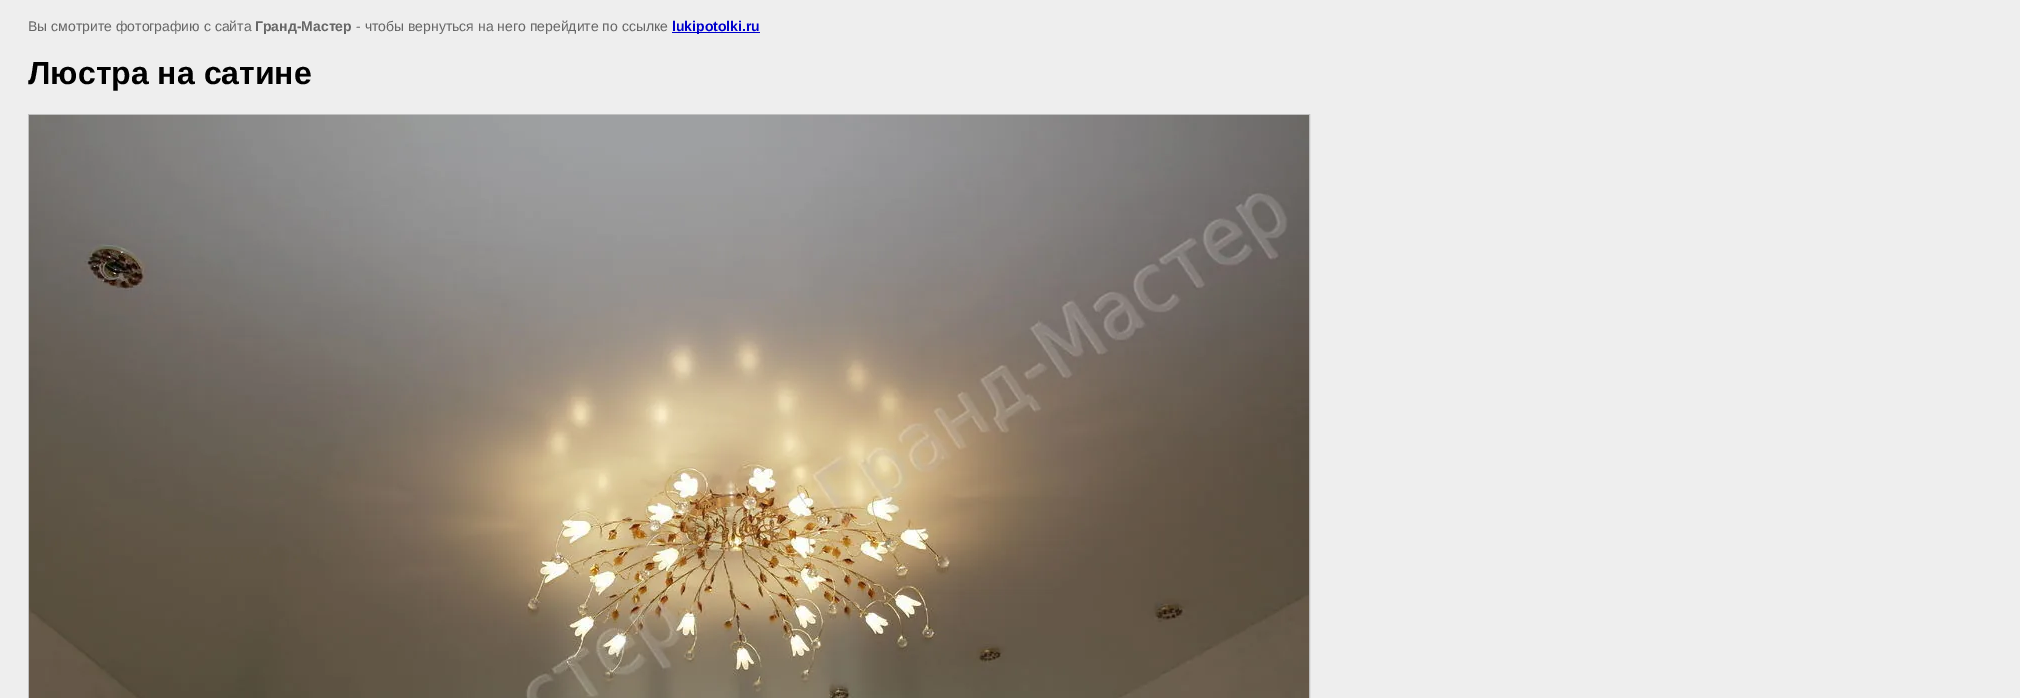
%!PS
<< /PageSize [2020 698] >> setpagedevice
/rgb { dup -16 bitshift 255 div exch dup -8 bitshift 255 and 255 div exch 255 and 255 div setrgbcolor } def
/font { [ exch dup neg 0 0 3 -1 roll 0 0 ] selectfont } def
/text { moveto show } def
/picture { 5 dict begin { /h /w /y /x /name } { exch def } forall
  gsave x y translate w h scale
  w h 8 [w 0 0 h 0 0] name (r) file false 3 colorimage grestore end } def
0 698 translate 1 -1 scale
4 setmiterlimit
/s1 { /LiberationSans-Regular 14 font 16#666666 rgb } def
/s2 { /LiberationSans-Bold 14 font 16#666666 rgb } def
/s3 { /LiberationSans-Bold 14 font 16#0000CC rgb } def
/s4 { /LiberationSans-Bold 32 font 16#000000 rgb } def
16#EEEEEE rgb
0 0 2020 698 rectfill
s1
(Вы смотрите фотографию с сайта) 28 31 text
s2
(Гранд-Мастер) 255 31 text
s1
(- чтобы вернуться на него перейдите по ссылке) 356 31 text
16#0000CC rgb
672 32 88 1 rectfill
s3
(lukipotolki.ru) 672 31 text
s4
(Люстра на сатине) 28 84 text
16#C0C0C0 rgb
28.5 114.5 1281 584 rectstroke
(pic1.raw) 29 115 1280 583 picture
showpage
